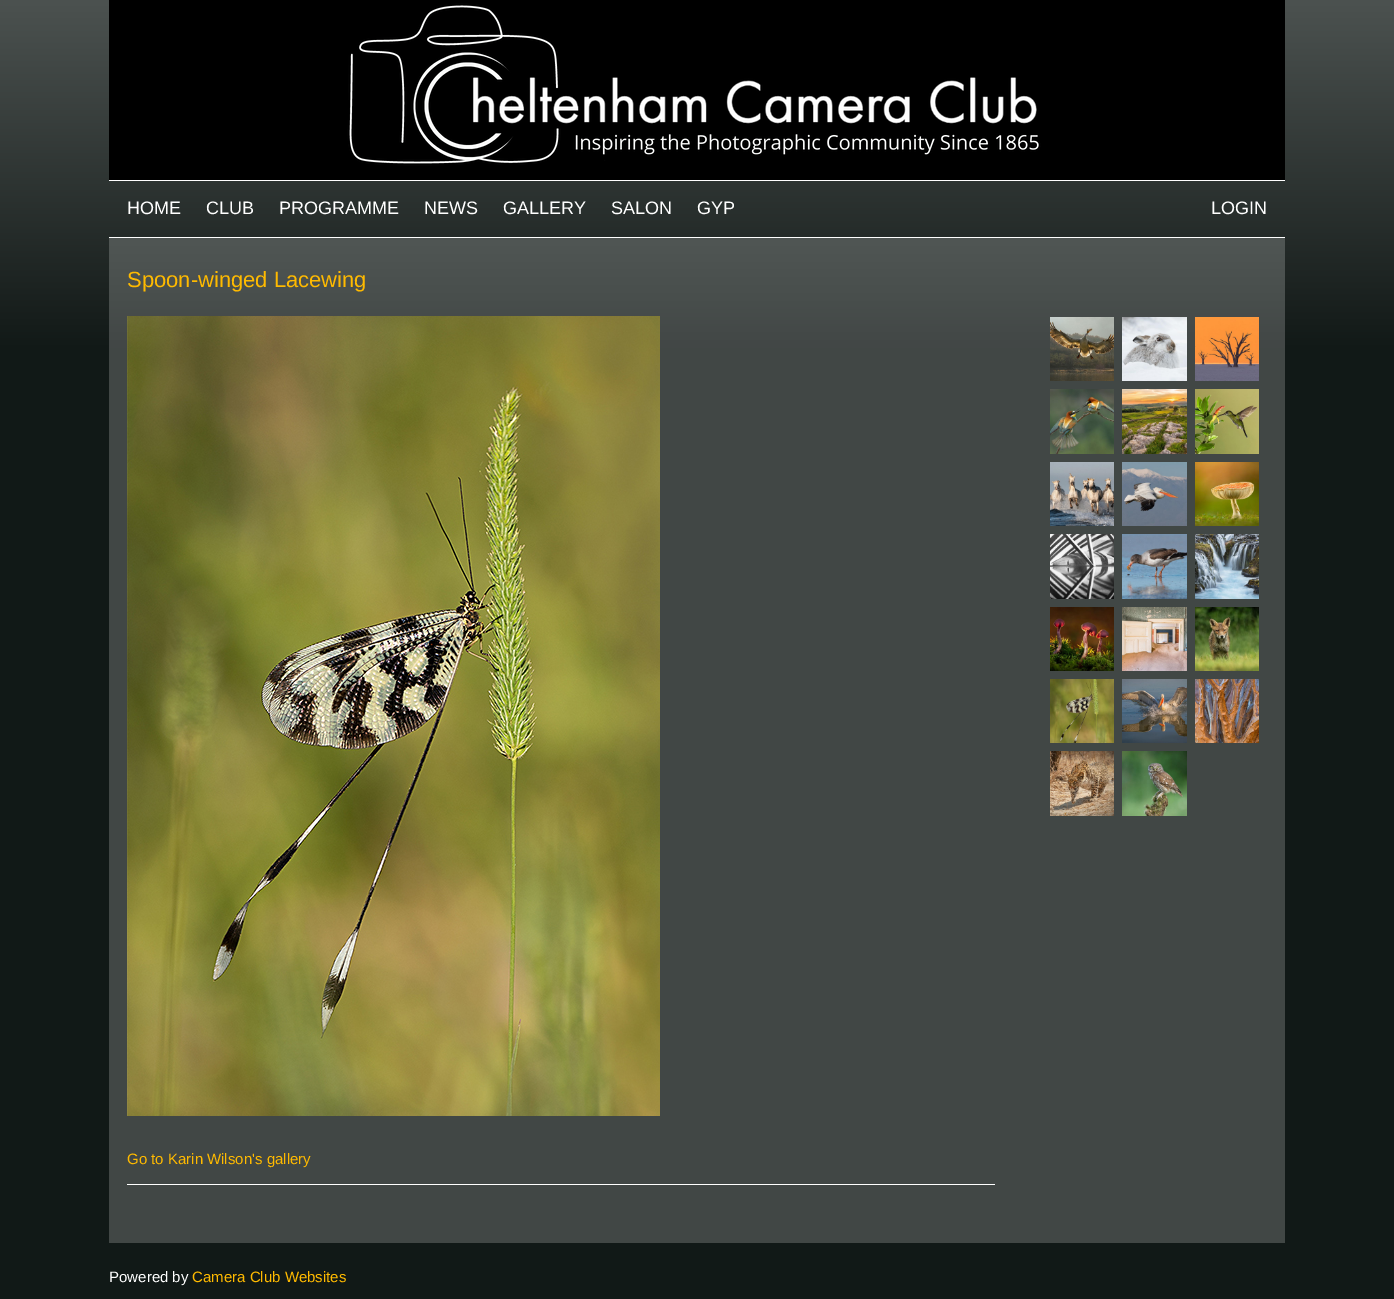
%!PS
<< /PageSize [1394 1299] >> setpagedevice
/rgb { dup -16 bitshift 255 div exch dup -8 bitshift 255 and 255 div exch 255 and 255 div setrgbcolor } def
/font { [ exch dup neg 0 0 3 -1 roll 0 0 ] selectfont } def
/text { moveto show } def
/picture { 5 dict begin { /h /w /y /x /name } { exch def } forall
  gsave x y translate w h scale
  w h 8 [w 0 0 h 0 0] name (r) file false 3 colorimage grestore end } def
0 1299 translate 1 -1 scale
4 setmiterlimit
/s1 { /LiberationSans-Regular 18 font 16#FFFFFF rgb } def
/s2 { /LiberationSans-Regular 22 font 16#FFBA00 rgb } def
/s3 { /LiberationSans-Regular 15 font 16#FFBA00 rgb } def
/s4 { /LiberationSans-Regular 15 font 16#FFFFFF rgb } def
16#FFFFFF rgb
0 0 1394 1299 rectfill
gsave 0 0 moveto 1394 0 lineto 1394 1299 lineto 0 1299 lineto closepath clip newpath
<< /ShadingType 2 /ColorSpace /DeviceRGB /Coords [697 0 697 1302] /Extend [true true] /Function << /FunctionType 3 /Domain [0 1] /Functions [<< /FunctionType 2 /Domain [0 1] /C0 [0.298 0.322 0.314] /C1 [0.067 0.098 0.09] /N 1 >> << /FunctionType 2 /Domain [0 1] /C0 [0.067 0.098 0.09] /C1 [0.067 0.098 0.09] /N 1 >>] /Bounds [0.27] /Encode [0 1 0 1] >> >> shfill grestore
gsave 109 238 moveto 1285 238 lineto 1285 1243 lineto 109 1243 lineto closepath clip newpath
<< /ShadingType 2 /ColorSpace /DeviceRGB /Coords [697 0 697 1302] /Extend [true true] /Function << /FunctionType 3 /Domain [0 1] /Functions [<< /FunctionType 2 /Domain [0 1] /C0 [0.439 0.459 0.451] /C1 [0.255 0.278 0.271] /N 1 >> << /FunctionType 2 /Domain [0 1] /C0 [0.255 0.278 0.271] /C1 [0.255 0.278 0.271] /N 1 >>] /Bounds [0.27] /Encode [0 1 0 1] >> >> shfill grestore
(pic1.raw) 109 0 1176 180 picture
109 180 1176 1 rectfill
109 237 1176 1 rectfill
s1
(HOME) 127 214 text
(CLUB) 206 214 text
(PROGRAMME) 279 214 text
(NEWS) 424 214 text
(GALLERY) 503 214 text
(SALON) 611 214 text
(GYP) 697 214 text
(LOGIN) 1211 214 text
s2
(Spoon-winged Lacewing) 127 287 text
(pic2.raw) 127 316 533 800 picture
16#FFFFFF rgb
127 1184 868 1 rectfill
s3
(Go to Karin Wilson's gallery) 127 1164 text
(pic3.raw) 1050 317 64 64 picture
(pic4.raw) 1122 317 65 64 picture
(pic5.raw) 1195 317 64 64 picture
(pic6.raw) 1050 389 64 65 picture
(pic7.raw) 1122 389 65 65 picture
(pic8.raw) 1195 389 64 65 picture
(pic9.raw) 1050 462 64 64 picture
(pic10.raw) 1122 462 65 64 picture
(pic11.raw) 1195 462 64 64 picture
(pic12.raw) 1050 534 64 65 picture
(pic13.raw) 1122 534 65 65 picture
(pic14.raw) 1195 534 64 65 picture
(pic15.raw) 1050 607 64 64 picture
(pic16.raw) 1122 607 65 64 picture
(pic17.raw) 1195 607 64 64 picture
(pic18.raw) 1050 679 64 64 picture
(pic19.raw) 1122 679 65 64 picture
(pic20.raw) 1195 679 64 64 picture
(pic21.raw) 1050 751 64 65 picture
(pic22.raw) 1122 751 65 65 picture
s4
(Powered by) 109 1282 text
s3
(Camera Club Websites) 192 1282 text
showpage
